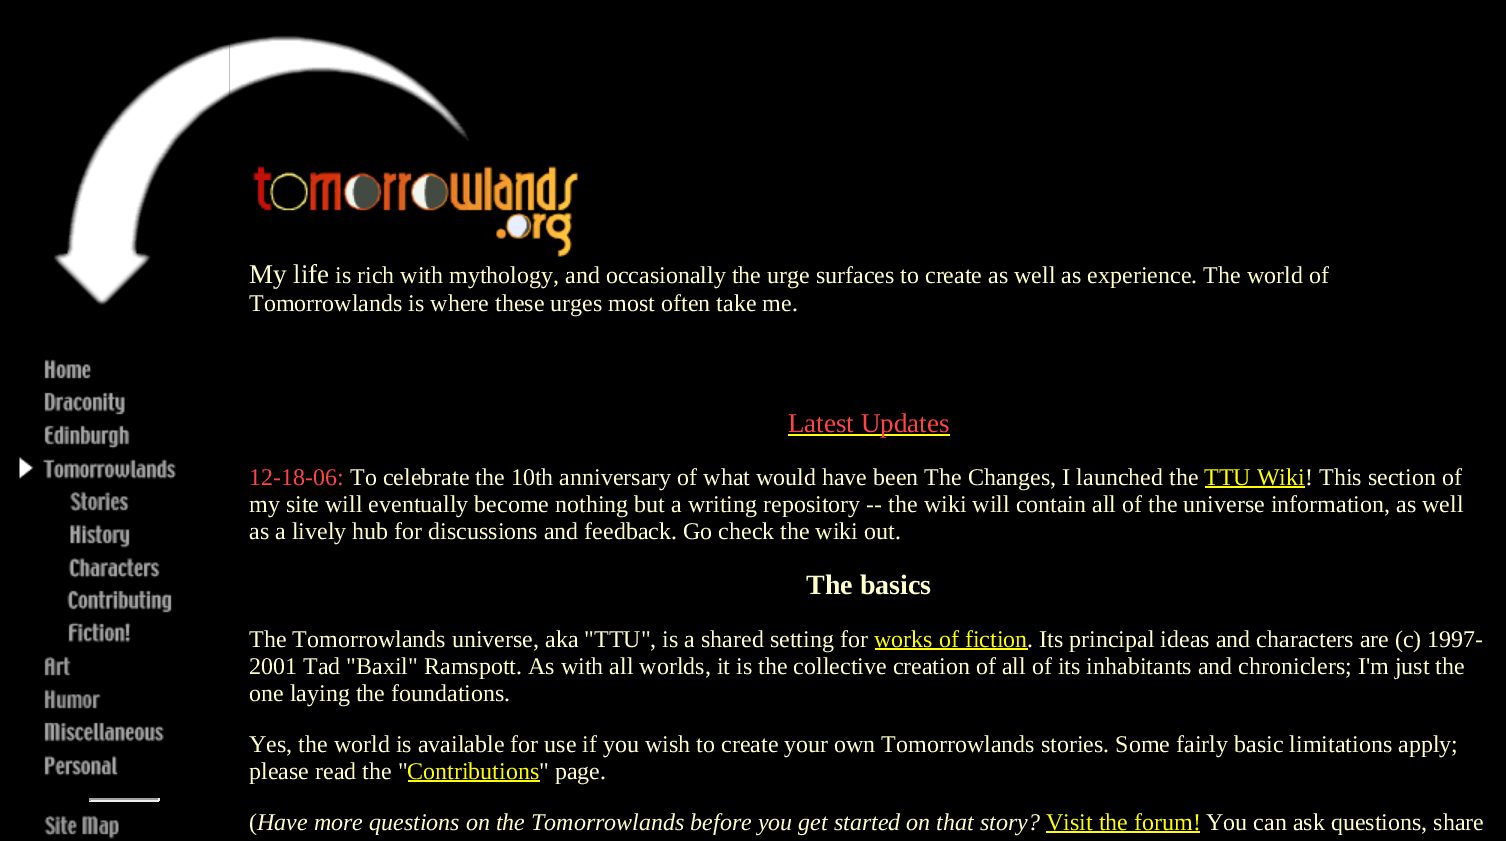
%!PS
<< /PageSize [1506 841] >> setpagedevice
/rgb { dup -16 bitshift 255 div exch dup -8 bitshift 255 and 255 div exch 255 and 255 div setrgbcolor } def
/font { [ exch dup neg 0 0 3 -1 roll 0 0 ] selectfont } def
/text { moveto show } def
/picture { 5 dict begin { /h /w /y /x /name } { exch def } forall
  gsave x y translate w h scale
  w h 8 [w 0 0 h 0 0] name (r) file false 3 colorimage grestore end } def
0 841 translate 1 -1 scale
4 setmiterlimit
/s1 { /LiberationSerif-Regular 27 font 16#FFFFCC rgb } def
/s2 { /LiberationSerif-Regular 24 font 16#FFFFCC rgb } def
/s3 { /LiberationSerif-Regular 27 font 16#FF4444 rgb } def
/s4 { /LiberationSerif-Regular 24 font 16#FF4444 rgb } def
/s5 { /LiberationSerif-Regular 24 font 16#FFFF00 rgb } def
/s6 { /LiberationSerif-Bold 28 font 16#FFFFCC rgb } def
/s7 { /LiberationSerif-Italic 24 font 16#FFFFCC rgb } def
16#000000 rgb
0 0 1506 841 rectfill
(pic1.raw) 53 43 177 262 picture
(pic2.raw) 229 39 20 57 picture
(pic3.raw) 249 35 221 106 picture
(pic4.raw) 253 166 325 91 picture
s1
(My life) 249 283 text
s2
(is rich with mythology, and occasionally the urge surfaces to create as well as experience. The world of) 335 283 text
(Tomorrowlands is where these urges most often take me.) 249 311 text
(pic5.raw) 44 359 48 20 picture
(pic6.raw) 44 392 81 23 picture
(pic7.raw) 44 425 86 24 picture
(pic8.raw) 19 457 15 22 picture
(pic9.raw) 43 459 133 20 picture
(pic10.raw) 70 491 60 21 picture
(pic11.raw) 70 524 60 24 picture
(pic12.raw) 68 557 92 21 picture
(pic13.raw) 67 590 105 23 picture
(pic14.raw) 68 622 63 21 picture
(pic15.raw) 44 656 27 20 picture
(pic16.raw) 44 689 57 20 picture
(pic17.raw) 44 722 120 20 picture
(pic18.raw) 44 755 74 21 picture
16#9F9F9F rgb
89 798 70 2 rectfill
16#EEEEEE rgb
158 798 2 3 rectfill
89 800 70 2 rectfill
16#9F9F9F rgb
89 798 2 3 rectfill
(pic19.raw) 44 815 75 24 picture
16#FFFF00 rgb
788 434 162 2 rectfill
s3
(Latest Updates) 788 432 text
s4
(12-18-06:) 249 485 text
s2
(To celebrate the 10th anniversary of what would have been The Changes, I launched the) 350 485 text
s5
(TTU Wiki) 1204 485 text
1205 486 100 2 rectfill
s2
(! This section of) 1305 485 text
(my site will eventually become nothing but a writing repository -- the wiki will contain all of the universe information, as well) 249 512 text
(as a lively hub for discussions and feedback. Go check the wiki out.) 249 539 text
s6
(The basics) 806 594 text
s2
(The Tomorrowlands universe, aka "TTU", is a shared setting for) 249 647 text
s5
(works of fiction) 874 647 text
875 648 153 2 rectfill
s2
(. Its principal ideas and characters are \(c\) 1997-) 1027 647 text
(2001 Tad "Baxil" Ramspott. As with all worlds, it is the collective creation of all of its inhabitants and chroniclers; I'm just the) 249 674 text
(one laying the foundations.) 249 701 text
(Yes, the world is available for use if you wish to create your own Tomorrowlands stories. Some fairly basic limitations apply;) 249 752 text
(please read the ") 249 779 text
s5
(Contributions) 407 779 text
408 780 132 2 rectfill
s2
(" page.) 539 779 text
(\() 249 830 text
s7
(Have more questions on the Tomorrowlands before you get started on that story?) 257 830 text
s5
(Visit the forum!) 1046 830 text
1046 831 154 2 rectfill
s2
(You can ask questions, share) 1206 830 text
showpage
